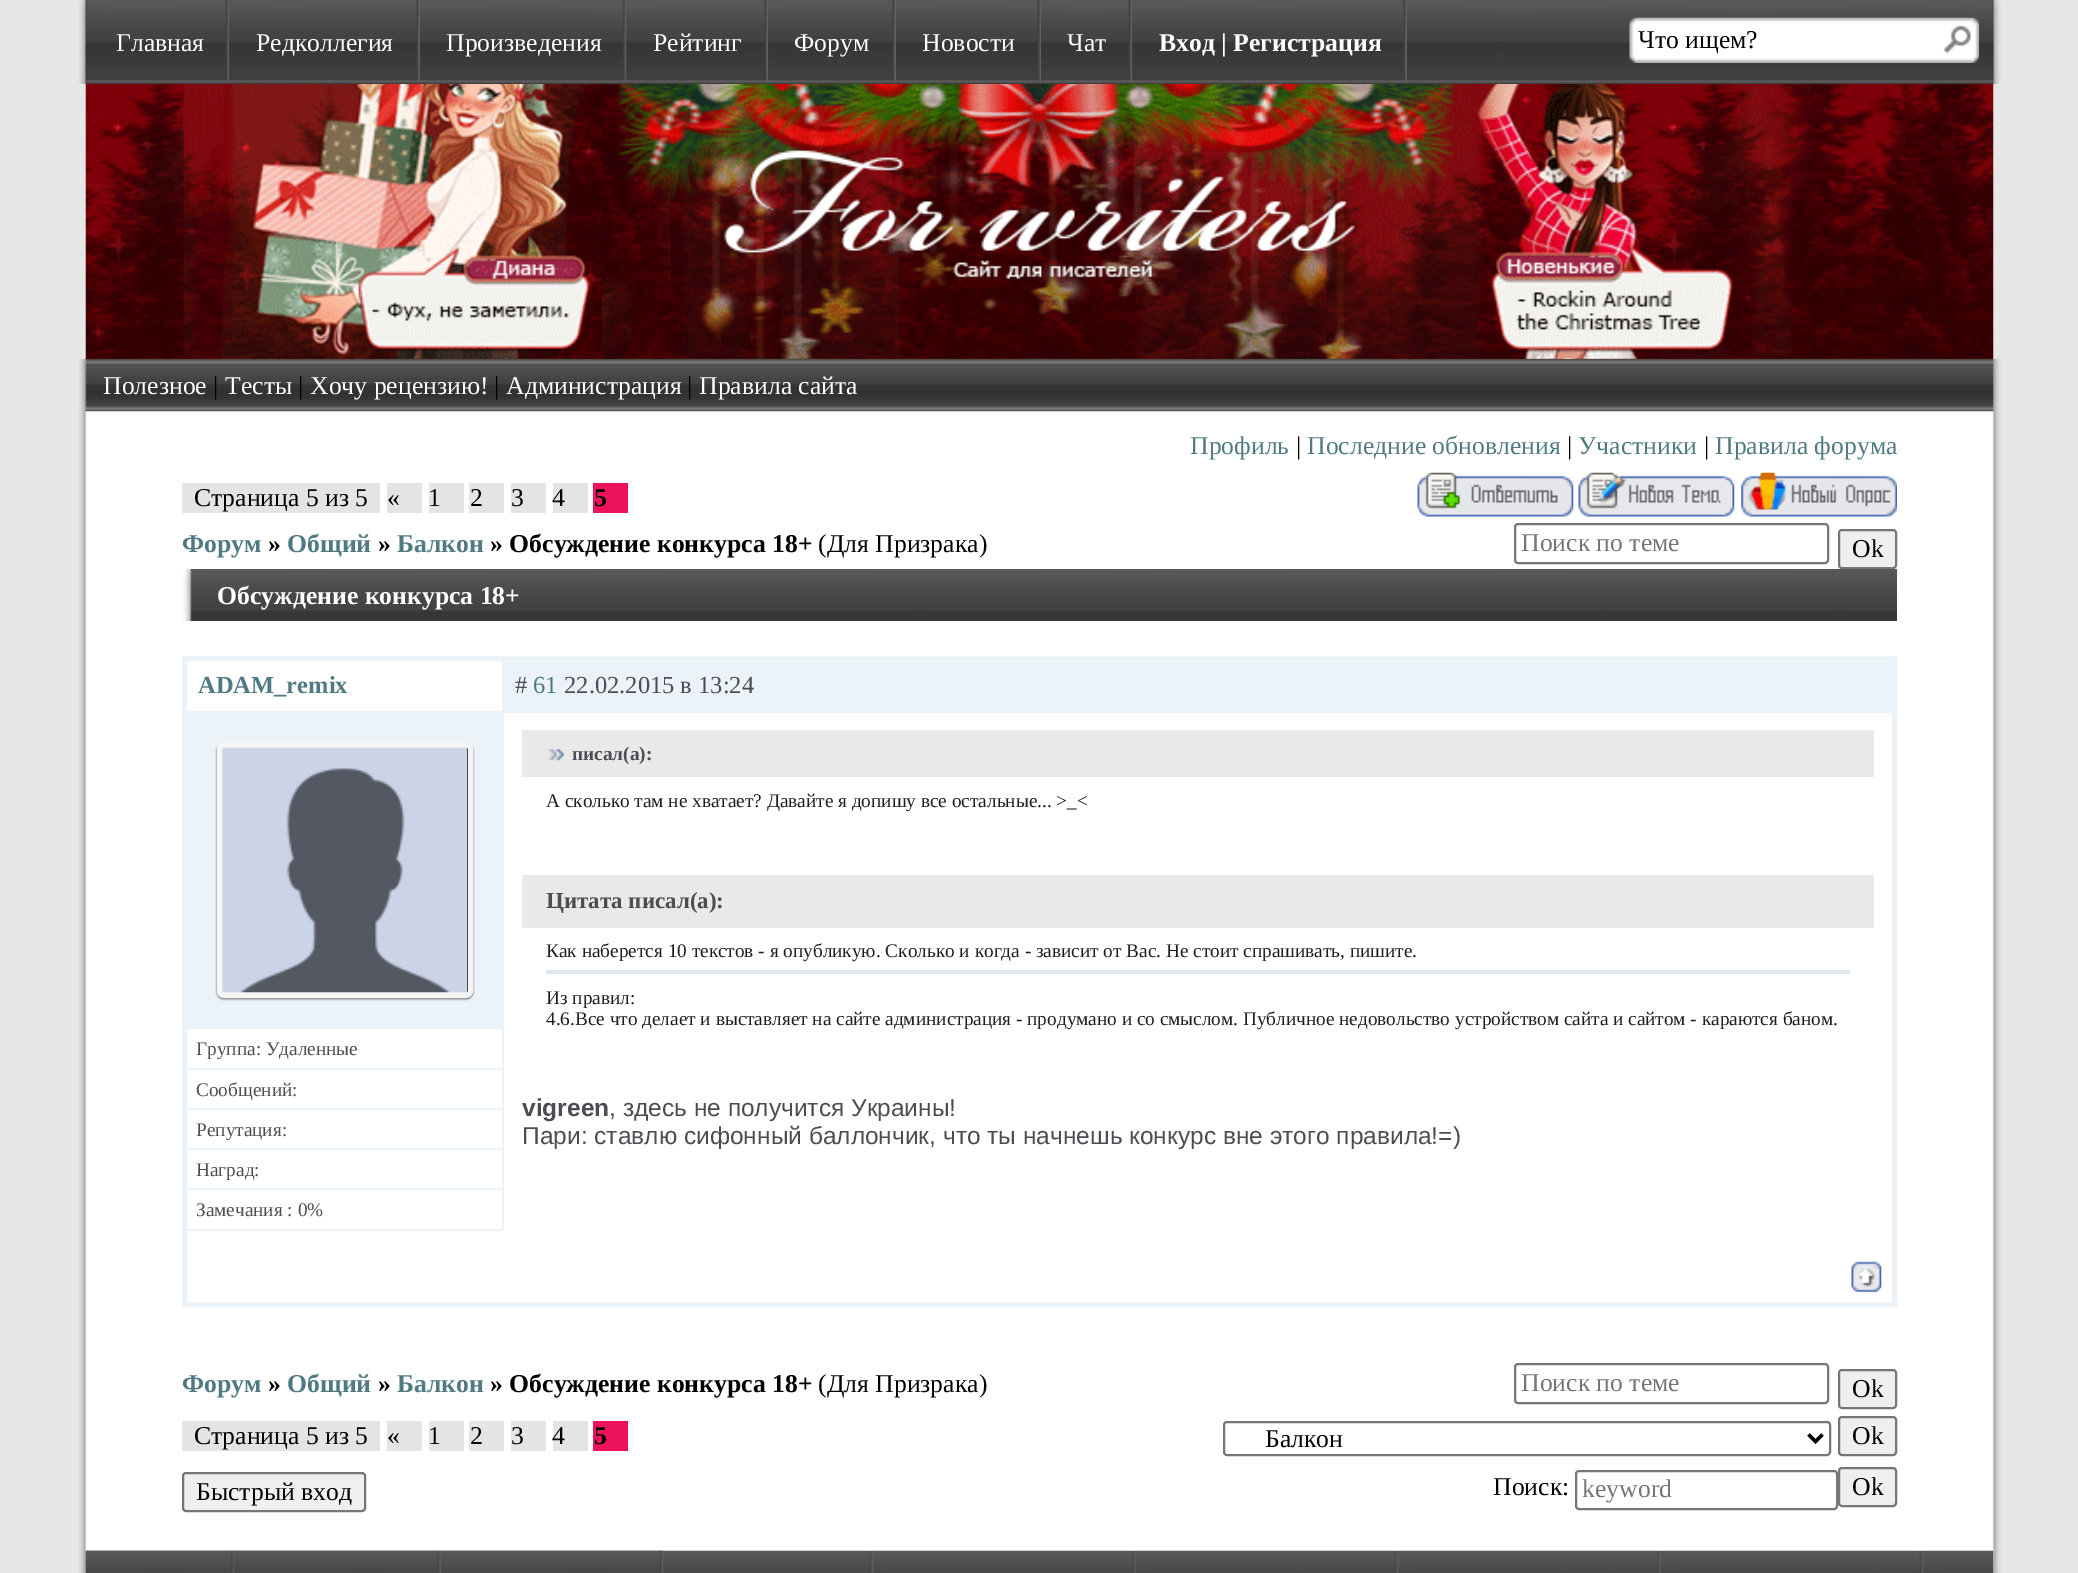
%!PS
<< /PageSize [2078 1573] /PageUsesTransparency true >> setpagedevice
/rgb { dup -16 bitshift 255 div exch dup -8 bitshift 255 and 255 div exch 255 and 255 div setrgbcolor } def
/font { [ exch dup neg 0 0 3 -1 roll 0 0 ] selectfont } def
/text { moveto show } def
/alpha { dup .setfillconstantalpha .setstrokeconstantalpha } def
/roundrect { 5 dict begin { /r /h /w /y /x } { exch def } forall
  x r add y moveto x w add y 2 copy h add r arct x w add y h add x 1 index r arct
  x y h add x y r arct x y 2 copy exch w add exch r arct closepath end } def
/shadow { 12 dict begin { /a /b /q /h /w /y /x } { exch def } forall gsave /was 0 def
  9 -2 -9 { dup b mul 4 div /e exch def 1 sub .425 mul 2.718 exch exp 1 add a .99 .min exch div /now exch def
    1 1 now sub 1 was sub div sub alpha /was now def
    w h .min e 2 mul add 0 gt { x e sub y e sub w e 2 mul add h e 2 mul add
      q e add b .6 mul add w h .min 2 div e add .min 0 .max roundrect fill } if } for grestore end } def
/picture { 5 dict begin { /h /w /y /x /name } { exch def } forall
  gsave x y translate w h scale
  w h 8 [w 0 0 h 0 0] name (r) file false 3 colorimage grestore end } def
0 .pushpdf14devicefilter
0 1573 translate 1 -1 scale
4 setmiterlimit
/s1 { /LiberationSerif-Regular 25.7 font 16#FFFFFF rgb } def
/s2 { /LiberationSerif-Bold 25.7 font 16#FFFFFF rgb } def
/s3 { /LiberationSerif-Regular 25.7 font 16#000000 rgb } def
/s4 { /LiberationSerif-Regular 25.7 font 16#4F7A83 rgb } def
/s5 { /LiberationSerif-Bold 25.7 font 16#000000 rgb } def
/s6 { /LiberationSerif-Bold 25.7 font 16#4F7A83 rgb } def
/s7 { /LiberationSerif-Regular 25.7 font 16#757575 rgb } def
/s8 { /LiberationSerif-Bold 24.5 font 16#4F7A83 rgb } def
/s9 { /LiberationSerif-Regular 19.25 font 16#4B4D52 rgb } def
/s10 { /LiberationSerif-Regular 24.5 font 16#4B4D52 rgb } def
/s11 { /LiberationSerif-Regular 24.5 font 16#4F7A83 rgb } def
/s12 { /LiberationSerif-Bold 19.25 font 16#4B4D52 rgb } def
/s13 { /LiberationSerif-Regular 19.25 font 16#1D1D1D rgb } def
/s14 { /LiberationSerif-Bold 23 font 16#4B4D52 rgb } def
/s15 { /LiberationSans-Bold 24.5 font 16#4B4D52 rgb } def
/s16 { /LiberationSans-Regular 24.5 font 16#4B4D52 rgb } def
16#E7E7E7 rgb
0 0 2078 1573 rectfill
(pic1.raw) 85 0 1909 359 picture
(pic2.raw) 78 0 1923 84 picture
(pic3.raw) 225 0 5 81 picture
s1
(Главная) 116 51 text
(pic4.raw) 229 0 191 81 picture
(Редколлегия) 256 51 text
(pic5.raw) 622 0 5 81 picture
(Произведения) 446 51 text
(pic6.raw) 626 0 143 81 picture
(Рейтинг) 653 51 text
(pic7.raw) 768 0 128 81 picture
(Форум) 794 51 text
(pic8.raw) 1037 0 4 81 picture
(Новости) 922 51 text
(pic3.raw) 1128 0 5 81 picture
(Чат) 1067 51 text
(pic9.raw) 1132 0 275 81 picture
s2
(Вход | Регистрация) 1159 51 text
(pic10.raw) 1629 17 351 46 picture
s3
(Что ищем?) 1638 48 text
(pic11.raw) 1943 26 28 27 picture
(pic12.raw) 78 359 1923 53 picture
s1
(Полезное) 103 394 text
s3
(|) 213 394 text
s1
(Тесты) 225 394 text
s3
(|) 298 394 text
s1
(Хочу рецензию!) 310 394 text
s3
(|) 494 394 text
s1
(Администрация) 506 394 text
s3
(|) 687 394 text
s1
(Правила сайта) 699 394 text
(pic13.raw) 78 411 1923 1140 picture
s4
(Профиль) 1190 454 text
s3
(|) 1296 454 text
s4
(Последние обновления) 1307 454 text
s3
(|) 1567 454 text
s4
(Участники) 1578 454 text
s3
(|) 1704 454 text
s4
(Правила форума) 1715 454 text
16#E4E4E4 rgb
182 483 198 30 rectfill
s3
(Страница 5 из 5) 194 506 text
16#E4E4E4 rgb
387 483 35 30 rectfill
s3
(«) 387 506 text
16#E4E4E4 rgb
429 483 35 30 rectfill
s3
(1) 428 506 text
16#E4E4E4 rgb
469 483 35 30 rectfill
s3
(2) 470 506 text
16#E4E4E4 rgb
511 483 35 30 rectfill
s3
(3) 511 506 text
16#E4E4E4 rgb
553 483 35 30 rectfill
s3
(4) 552 506 text
16#ED135A rgb
593 483 35 30 rectfill
s5
(5) 594 506 text
(pic14.raw) 1417 472 157 45 picture
(pic15.raw) 1578 472 157 45 picture
(pic16.raw) 1741 472 156 45 picture
s6
(Форум) 182 552 text
s5
(») 268 552 text
s6
(Общий) 287 552 text
s5
(») 378 552 text
s6
(Балкон) 397 552 text
s5
(» Обсуждение конкурса 18+) 490 552 text
s3
(\(Для Призрака\)) 818 552 text
16#767676 rgb
2 setlinewidth
1515 524 313 39 3 roundrect stroke
s7
(Поиск по теме) 1521 551 text
16#EFEFEF rgb
1839 530 57 38 3 roundrect gsave fill grestore
16#767676 rgb
stroke
s3
(Ok) 1852 557 text
(pic17.raw) 183 569 1714 52 picture
s2
(Обсуждение конкурса 18+) 217 604 text
16#EBF2F8 rgb
5 setlinewidth
184.5 658.5 1710 646 rectstroke
502 662 2 568 rectfill
187 711 315 318 rectfill
s8
(ADAM_remix) 198 693 text
16#000000 rgb
217 744 256 255 7 1 0.7 shadow
16#F5F5F5 rgb
219.5 744.5 251 251 4.5 roundrect stroke
(pic18.raw) 222 747 245 246 picture
16#EBF2F8 rgb
187 1068 315 2 rectfill
s9
(Группа: Удаленные) 196 1055 text
16#EBF2F8 rgb
187 1108 315 2 rectfill
s9
(Сообщений:) 196 1096 text
16#EBF2F8 rgb
187 1148 315 2 rectfill
s9
(Репутация:) 196 1136 text
16#EBF2F8 rgb
187 1188 315 2 rectfill
s9
(Наград:) 196 1176 text
16#EBF2F8 rgb
187 1229 315 2 rectfill
s9
(Замечания : 0%) 196 1216 text
16#EBF2F8 rgb
504 662 1388 51 rectfill
s10
(#) 515 693 text
s11
(61) 533 693 text
s10
(22.02.2015 в 13:24) 564 693 text
16#E9E9E9 rgb
522 730 1352 47 rectfill
(pic19.raw) 547 748 17 14 picture
s12
(писал\(а\):) 572 760 text
s13
(А сколько там не хватает? Давайте я допишу все остальные... >_<) 546 807 text
16#E9E9E9 rgb
522 875 1352 53 rectfill
s14
(Цитата писал\(а\):) 546 908 text
s13
(Как наберется 10 текстов - я опубликую. Сколько и когда - зависит от Вас. Не стоит спрашивать, пишите.) 546 957 text
16#E1E8ED rgb
546 970 1304 4 rectfill
s13
(Из правил:) 546 1004 text
(4.6.Все что делает и выставляет на сайте администрация - продумано и со смыслом. Публичное недовольство устройством сайта и сайтом - караются баном.) 546 1025 text
s15
(vigreen) 522 1116 text
s16
(, здесь не получится Украины!) 609 1116 text
(Пари: ставлю сифонный баллончик, что ты начнешь конкурс вне этого правила!=\)) 522 1144 text
(pic20.raw) 1851 1261 31 31 picture
s6
(Форум) 182 1392 text
s5
(») 268 1392 text
s6
(Общий) 287 1392 text
s5
(») 378 1392 text
s6
(Балкон) 397 1392 text
s5
(» Обсуждение конкурса 18+) 490 1392 text
s3
(\(Для Призрака\)) 818 1392 text
16#767676 rgb
2 setlinewidth
1515 1364 313 39 3 roundrect stroke
s7
(Поиск по теме) 1521 1391 text
16#EFEFEF rgb
1839 1370 57 38 3 roundrect gsave fill grestore
16#767676 rgb
stroke
s3
(Ok) 1852 1397 text
16#E4E4E4 rgb
182 1421 198 30 rectfill
s3
(Страница 5 из 5) 194 1444 text
16#E4E4E4 rgb
387 1421 35 30 rectfill
s3
(«) 387 1444 text
16#E4E4E4 rgb
429 1421 35 30 rectfill
s3
(1) 428 1444 text
16#E4E4E4 rgb
469 1421 35 30 rectfill
s3
(2) 470 1444 text
16#E4E4E4 rgb
511 1421 35 30 rectfill
s3
(3) 511 1444 text
16#E4E4E4 rgb
553 1421 35 30 rectfill
s3
(4) 552 1444 text
16#ED135A rgb
593 1421 35 30 rectfill
s5
(5) 594 1444 text
16#767676 rgb
1224 1422 606 33 3 roundrect stroke
16#000000 rgb
3.5 setlinewidth
1808.5 1434.5 moveto 1815.5 1441.5 lineto 1822.5 1434.5 lineto stroke
s3
(Балкон) 1265 1447 text
16#EFEFEF rgb
1839 1417 57 38 3 roundrect gsave fill grestore
16#767676 rgb
2 setlinewidth
stroke
s3
(Ok) 1852 1444 text
16#EFEFEF rgb
183 1473 182 38 3 roundrect gsave fill grestore
16#767676 rgb
stroke
s3
(Быстрый вход) 196 1500 text
(Поиск:) 1493 1495 text
16#767676 rgb
1576 1471 261 38 3 roundrect stroke
s7
(keyword) 1582 1497 text
16#EFEFEF rgb
1839 1468 57 38 3 roundrect gsave fill grestore
16#767676 rgb
stroke
s3
(Ok) 1852 1495 text
(pic21.raw) 78 1550 1923 23 picture
(pic22.raw) 85 1550 1909 23 picture
(pic23.raw) 85 1550 150 23 picture
(pic24.raw) 234 1550 207 23 picture
(pic25.raw) 441 1550 223 23 picture
.poppdf14devicefilter showpage
